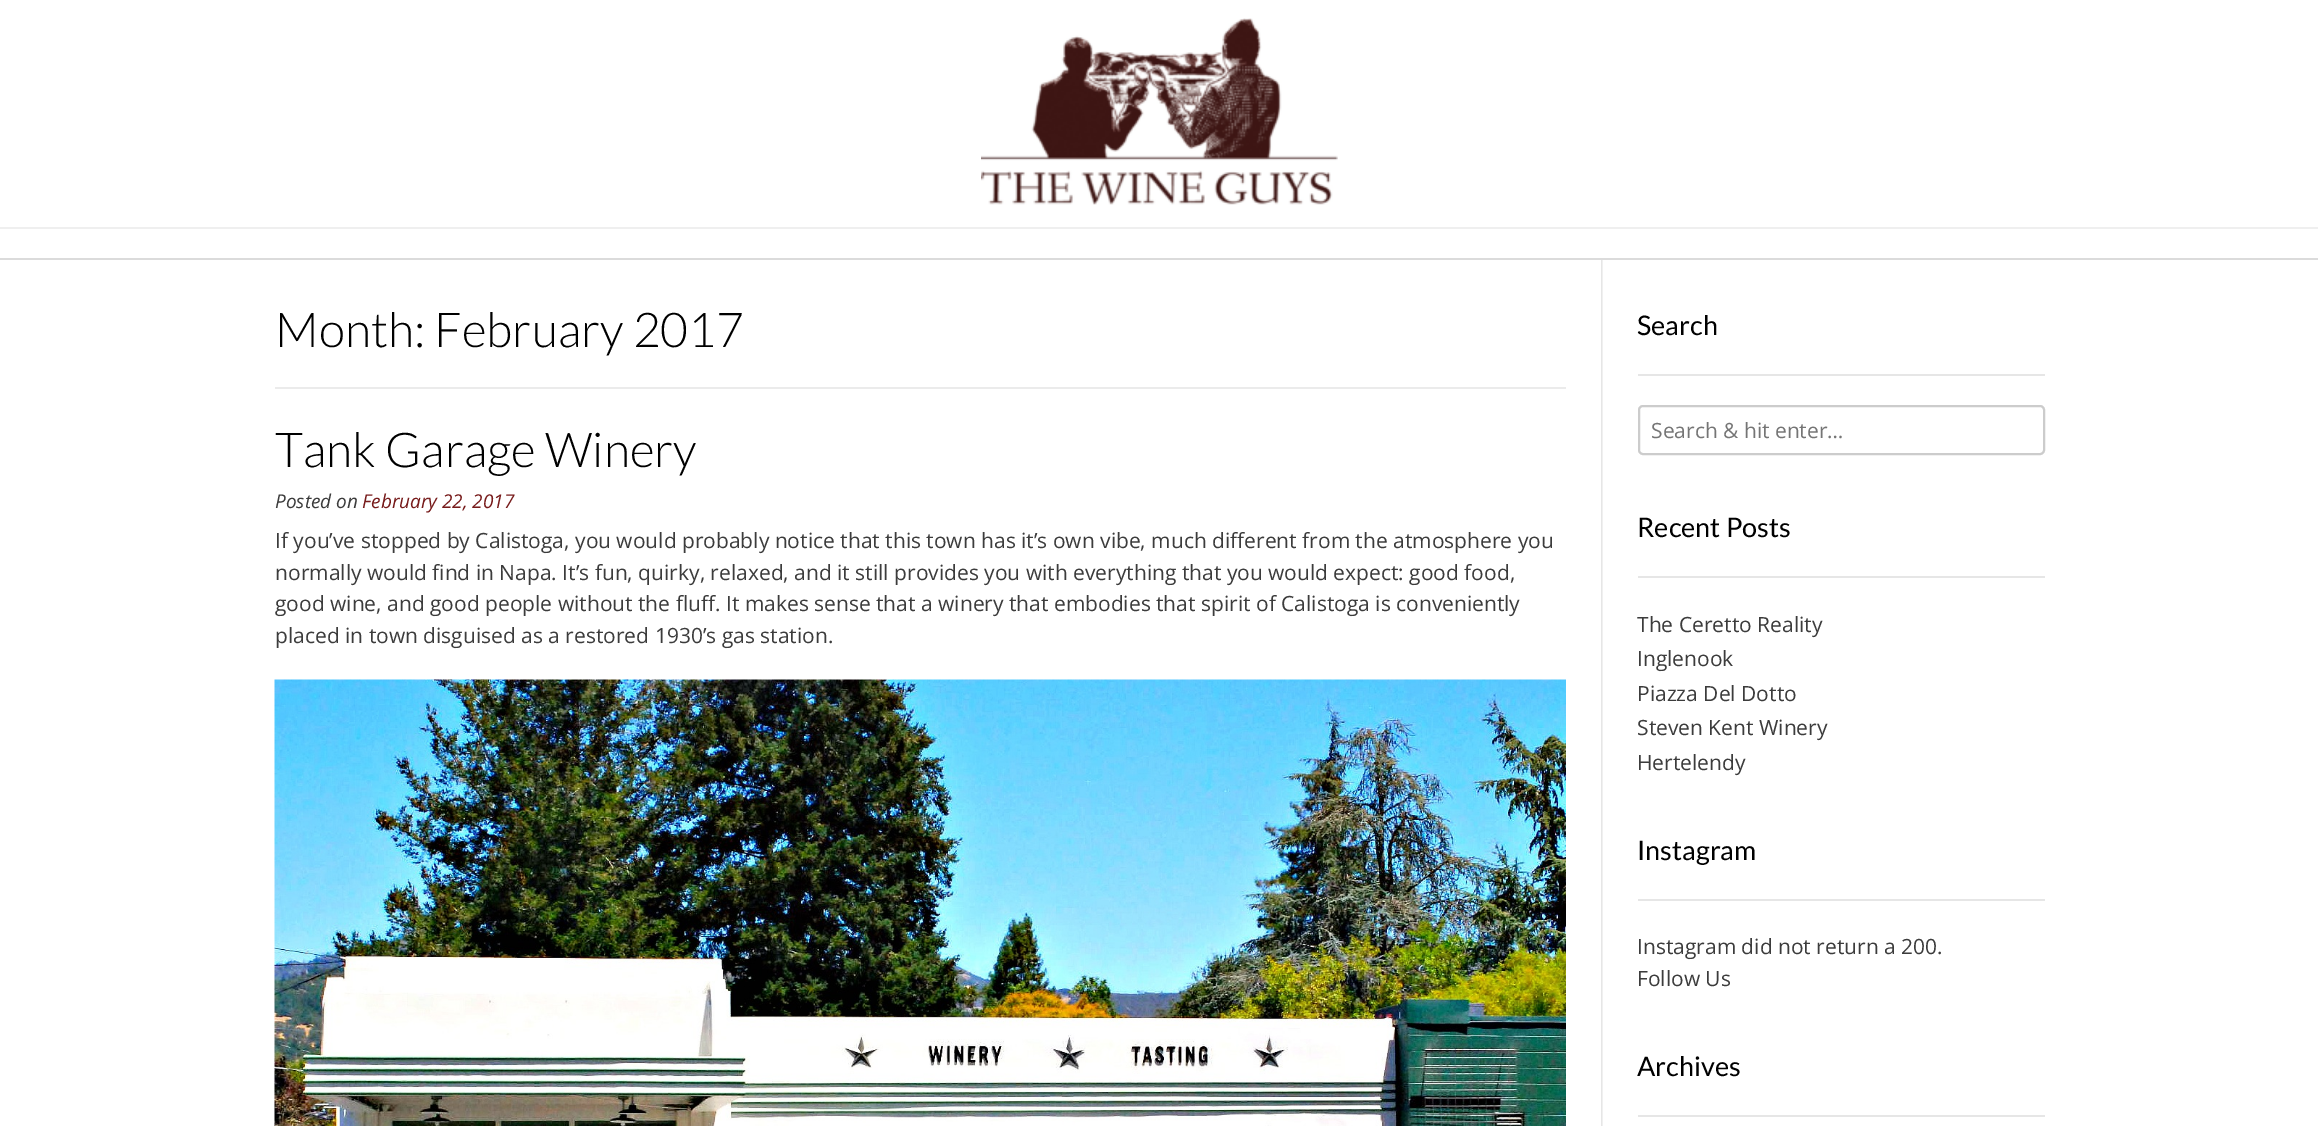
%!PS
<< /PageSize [2318 1126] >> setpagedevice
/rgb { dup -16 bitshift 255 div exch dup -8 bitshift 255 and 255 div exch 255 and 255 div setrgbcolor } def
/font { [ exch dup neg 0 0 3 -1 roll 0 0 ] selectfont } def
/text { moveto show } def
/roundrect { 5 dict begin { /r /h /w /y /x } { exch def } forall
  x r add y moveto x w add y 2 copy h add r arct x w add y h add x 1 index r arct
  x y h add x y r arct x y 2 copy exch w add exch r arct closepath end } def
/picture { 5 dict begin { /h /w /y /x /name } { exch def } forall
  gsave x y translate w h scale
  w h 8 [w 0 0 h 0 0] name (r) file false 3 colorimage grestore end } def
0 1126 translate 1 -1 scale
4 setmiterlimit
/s1 { /Lato-Light 48 font 16#000000 rgb } def
/s2 { /OpenSans-Italic 19 font 16#3C3C3C rgb } def
/s3 { /OpenSans-Italic 19 font 16#771B1B rgb } def
/s4 { /OpenSans-Regular 21 font 16#3C3C3C rgb } def
/s5 { /Lato-Regular 27 font 16#000000 rgb } def
/s6 { /OpenSans-Regular 21 font 16#757575 rgb } def
16#FFFFFF rgb
0 0 2318 1126 rectfill
16#F0F0F0 rgb
1602 260 1 866 rectfill
16#DBDBDB rgb
0 258 2318 2 rectfill
(pic1.raw) 981 18 357 187 picture
16#EFEFEF rgb
0 227 2318 2 rectfill
16#EBEBEB rgb
275 387 1291 2 rectfill
s1
(Month: February 2017) 275 347 text
(Tank Garage Winery) 275 467 text
s2
(Posted on) 275 508 text
s3
(February 22, 2017) 362 508 text
s4
(If you’ve stopped by Calistoga, you would probably notice that this town has it’s own vibe, much different from the atmosphere you) 275 548 text
(normally would find in Napa. It’s fun, quirky, relaxed, and it still provides you with everything that you would expect: good food,) 275 580 text
(good wine, and good people without the fluff. It makes sense that a winery that embodies that spirit of Calistoga is conveniently) 275 611 text
(placed in town disguised as a restored 1930’s gas station.) 275 643 text
(pic2.raw) 274 679 1292 447 picture
16#E6E6E6 rgb
1601 260 1 866 rectfill
1638 374 407 2 rectfill
s5
(Search) 1637 335 text
16#CCCCCC rgb
2 setlinewidth
1639 406 405 48 4 roundrect stroke
s6
(Search & hit enter…) 1651 438 text
16#E6E6E6 rgb
1638 576 407 2 rectfill
s5
(Recent Posts) 1637 537 text
s4
(The Ceretto Reality) 1637 632 text
(Inglenook) 1637 666 text
(Piazza Del Dotto) 1637 701 text
(Steven Kent Winery) 1637 735 text
(Hertelendy) 1637 770 text
16#E6E6E6 rgb
1638 899 407 2 rectfill
s5
(Instagram) 1637 860 text
s4
(Instagram did not return a 200.) 1637 954 text
(Follow Us) 1637 986 text
16#E6E6E6 rgb
1638 1115 407 2 rectfill
s5
(Archives) 1637 1076 text
showpage
